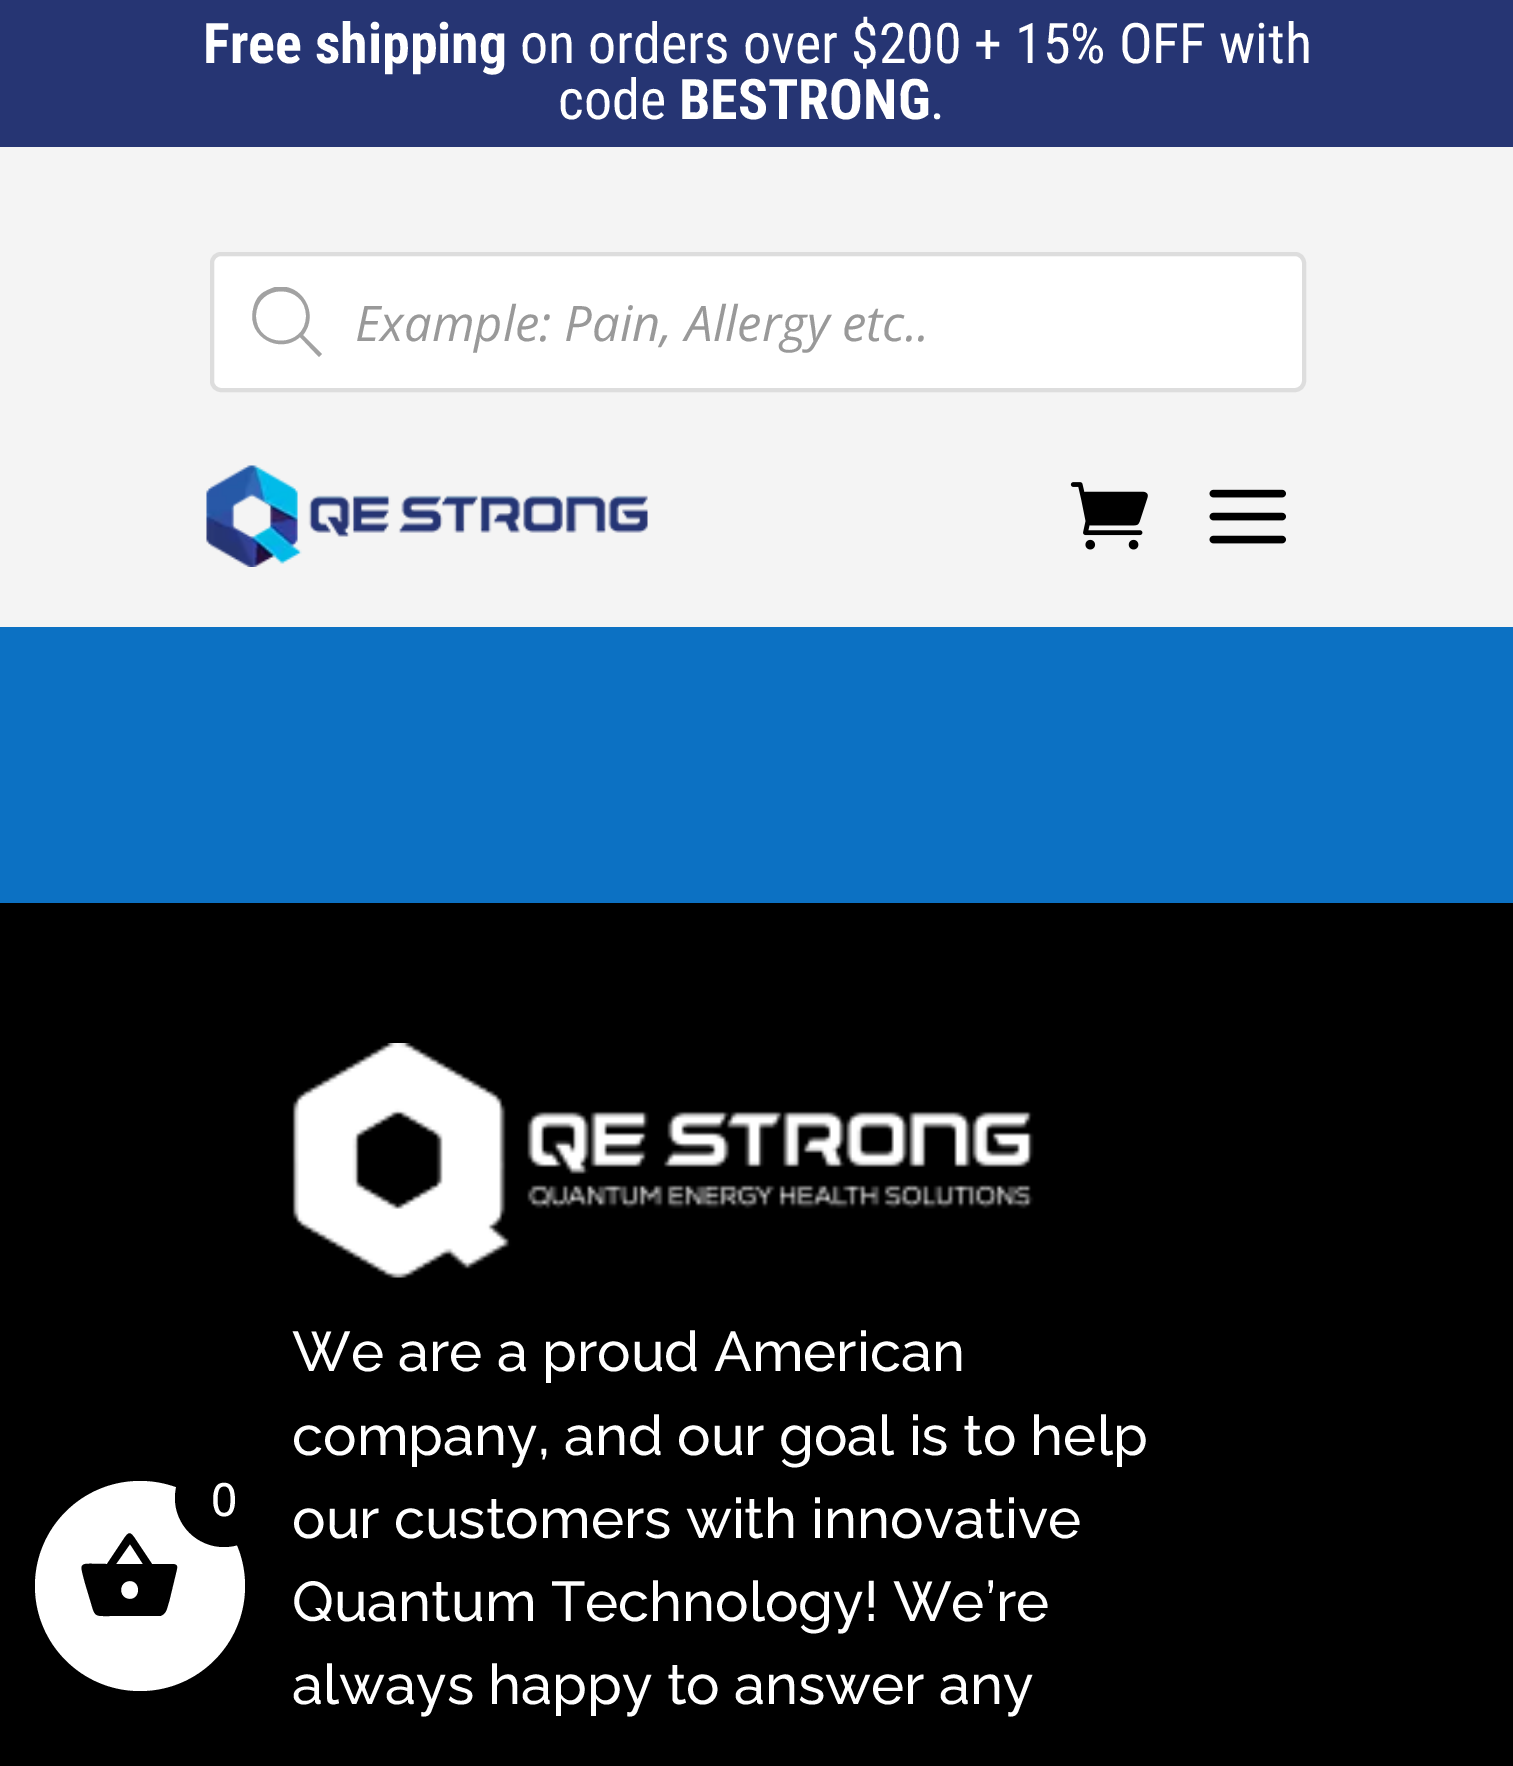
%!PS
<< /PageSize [1513 1766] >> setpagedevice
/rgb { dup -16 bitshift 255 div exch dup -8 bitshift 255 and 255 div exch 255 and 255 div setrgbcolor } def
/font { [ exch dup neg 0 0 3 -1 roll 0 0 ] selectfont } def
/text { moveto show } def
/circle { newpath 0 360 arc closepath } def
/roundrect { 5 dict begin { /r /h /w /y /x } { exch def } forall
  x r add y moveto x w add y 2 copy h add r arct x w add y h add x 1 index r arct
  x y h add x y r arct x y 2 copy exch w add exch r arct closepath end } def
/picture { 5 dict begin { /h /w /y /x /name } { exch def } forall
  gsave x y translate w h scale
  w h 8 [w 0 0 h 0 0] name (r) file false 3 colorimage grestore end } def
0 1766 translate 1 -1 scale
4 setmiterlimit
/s1 { /RobotoCondensed-Bold 56 font 16#FFFFFF rgb } def
/s2 { /RobotoCondensed-Regular 56 font 16#FFFFFF rgb } def
/s3 { /OpenSans-Italic 49 font 16#999999 rgb } def
/s4 { /Raleway-Thin 56 font 16#FFFFFF rgb } def
/s5 { /OpenSans-Medium 46 font 16#FFFFFF rgb } def
16#0C71C3 rgb
0 0 1513 1766 rectfill
16#263573 rgb
0 0 1513 147 rectfill
s1
(Free shipping) 203 63 text
s2
(on orders over $200 + 15% OFF with) 520 63 text
(code) 558 119 text
s1
(BESTRONG) 679 119 text
s2
(.) 930 119 text
16#F4F4F4 rgb
0 147 1513 480 rectfill
16#FFFFFF rgb
212 254 1092 136 9 roundrect gsave fill grestore
16#DDDDDD rgb
4 setlinewidth
stroke
gsave
252 287 70 70 rectclip
16#A2A2A2 rgb
322 354 moveto 303 335 lineto 320 314 302 282 275 287 curveto 270 289 264 291 260 295 curveto 256 299 254 304 253 310 curveto 247 337 280 355 300 337 curveto 319 357 lineto closepath 256 316 moveto 256 283 306 283 306 316 curveto 306 349 256 349 256 316 curveto closepath fill
grestore
s3
(Example: Pain, Allergy etc..) 355 341 text
(pic1.raw) 206 465 442 102 picture
(pic2.raw) 1070 482 78 68 picture
(pic3.raw) 1209 489 77 55 picture
16#000000 rgb
0 903 1513 863 rectfill
(pic4.raw) 292 1043 742 235 picture
s4
(We are a proud American) 292 1371 text
(company, and our goal is to help) 292 1455 text
(our customers with innovative) 292 1538 text
(Quantum Technology! We’re) 292 1621 text
(always happy to answer any) 292 1704 text
140 1586 105 circle fill
16#000000 rgb
224 1498 49 circle fill
s5
(0) 211 1516 text
16#000000 rgb
130 1599 moveto 141 1599 141 1581 130 1581 curveto 118 1581 118 1599 130 1599 curveto closepath 116 1564 moveto 143 1564 lineto 130 1544 lineto closepath 152 1564 moveto 170 1564 lineto 178 1564 178 1565 176 1573 curveto 169 1602 lineto 167 1607 167 1614 160 1616 curveto 110 1616 lineto 95 1616 95 1617 91 1603 curveto 85 1583 lineto 79 1560 78 1564 107 1564 curveto 123 1540 lineto 129 1531 130 1531 136 1540 curveto closepath fill
showpage
